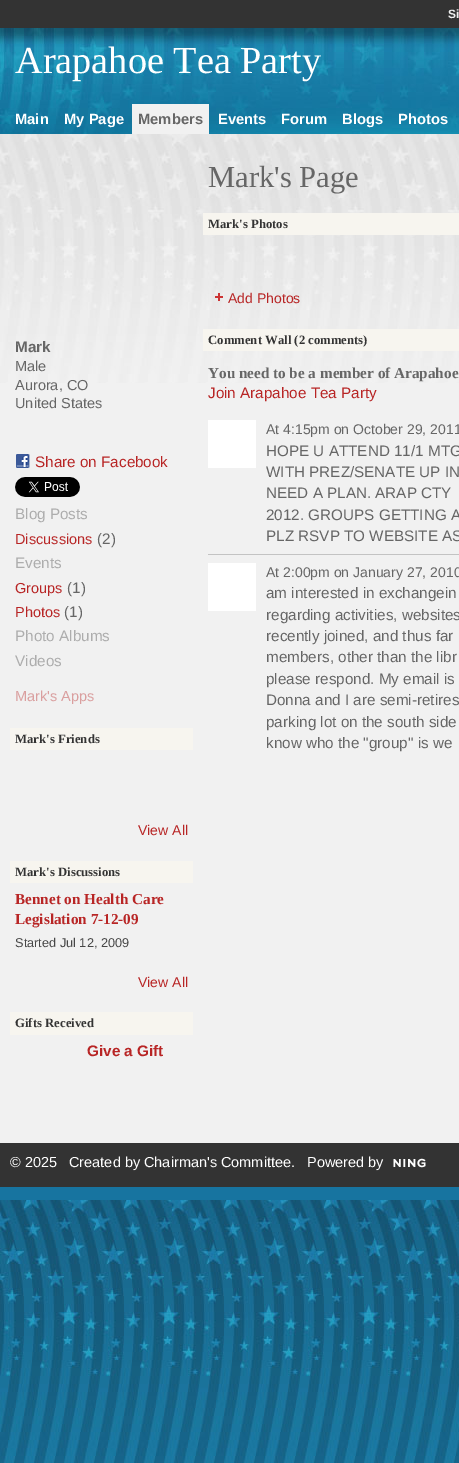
%!PS
<< /PageSize [459 1463] >> setpagedevice
/rgb { dup -16 bitshift 255 div exch dup -8 bitshift 255 and 255 div exch 255 and 255 div setrgbcolor } def
/font { [ exch dup neg 0 0 3 -1 roll 0 0 ] selectfont } def
/text { moveto show } def
/picture { 5 dict begin { /h /w /y /x /name } { exch def } forall
  gsave x y translate w h scale
  w h 8 [w 0 0 h 0 0] name (r) file false 3 colorimage grestore end } def
0 1463 translate 1 -1 scale
4 setmiterlimit
/s1 { /LiberationSans-Bold 12 font 16#EEEEEE rgb } def
/s2 { /LiberationSerif-Regular 38.25 font 16#FFFFFF rgb } def
/s3 { /LiberationSans-Bold 14.75 font 16#FFFFFF rgb } def
/s4 { /LiberationSans-Bold 14.75 font 16#666666 rgb } def
/s5 { /LiberationSans-Bold 15.25 font 16#666666 rgb } def
/s6 { /LiberationSans-Regular 14.5 font 16#666666 rgb } def
/s7 { /LiberationSans-Regular 15.25 font 16#B82525 rgb } def
/s8 { /LiberationSans-Regular 15.25 font 16#ADADAD rgb } def
/s9 { /LiberationSans-Regular 14.5 font 16#B82525 rgb } def
/s10 { /LiberationSans-Regular 15.25 font 16#666666 rgb } def
/s11 { /LiberationSans-Regular 14.5 font 16#DA9F9F rgb } def
/s12 { /LiberationSerif-Bold 12.75 font 16#333333 rgb } def
/s13 { /LiberationSans-Regular 14 font 16#B82525 rgb } def
/s14 { /LiberationSerif-Bold 15.2 font 16#B82525 rgb } def
/s15 { /LiberationSans-Regular 12.75 font 16#464646 rgb } def
/s16 { /LiberationSans-Bold 15.25 font 16#B82525 rgb } def
/s17 { /LiberationSerif-Regular 30.5 font 16#666666 rgb } def
/s18 { /LiberationSerif-Bold 15.2 font 16#666666 rgb } def
/s19 { /LiberationSans-Regular 14 font 16#666666 rgb } def
/s20 { /LiberationSans-Regular 14.5 font 16#FFFFFF rgb } def
16#FFFFFF rgb
0 0 459 1463 rectfill
(pic1.raw) 0 1187 459 276 picture
16#333333 rgb
0 0 459 28 rectfill
s1
(Si) 448 18 text
(pic2.raw) 0 28 459 106 picture
s2
(Arapahoe Tea Party) 15 73 text
s3
(Main) 15 124 text
(My Page) 64 124 text
16#F1F1F1 rgb
132 104 77 30 rectfill
s4
(Members) 138 124 text
s3
(Events) 218 124 text
(Forum) 281 124 text
(Blogs) 342 124 text
(Photos) 398 124 text
16#F1F1F1 rgb
0 383 459 760 rectfill
(pic3.raw) 0 134 459 249 picture
s5
(Mark) 15 352 text
s6
(Male) 15 371 text
(Aurora, CO) 15 390 text
(United States) 15 408 text
(pic4.raw) 16 454 14 14 picture
s7
(Share on Facebook) 35 467 text
(pic5.raw) 15 477 65 20 picture
s8
(Blog Posts) 15 519 text
s9
(Discussions) 15 544 text
s10
(\(2\)) 97 544 text
s8
(Events) 15 568 text
s9
(Groups) 15 593 text
s10
(\(1\)) 67 593 text
s9
(Photos) 15 617 text
s10
(\(1\)) 64 617 text
s8
(Photo Albums) 15 641 text
(Videos) 15 666 text
s11
(Mark's Apps) 15 701 text
16#F7F5EF rgb
10 728 183 22 rectfill
s12
(Mark's Friends) 15 743 text
s13
(View All) 138 835 text
16#F7F5EF rgb
10 861 183 22 rectfill
s12
(Mark's Discussions) 15 876 text
s14
(Bennet on Health Care) 15 904 text
(Legislation 7-12-09) 15 924 text
s15
(Started Jul 12, 2009) 15 947 text
s13
(View All) 138 987 text
16#F7F5EF rgb
10 1012 183 23 rectfill
s12
(Gifts Received) 15 1027 text
s16
(Give a Gift) 87 1056 text
s17
(Mark's Page) 208 187 text
16#F7F5EF rgb
203 213 256 22 rectfill
s12
(Mark's Photos) 208 228 text
(pic6.raw) 215 293 8 8 picture
s13
(Add Photos) 228 303 text
16#F7F5EF rgb
203 329 256 22 rectfill
s12
(Comment Wall \(2 comments\)) 208 344 text
s18
(You need to be a member of Arapahoe) 208 378 text
s7
(Join Arapahoe Tea Party) 208 398 text
16#C3C3C3 rgb
208 554 251 1 rectfill
16#FFFFFF rgb
208 420 48 48 rectfill
s19
(At 4:15pm on October 29, 2011) 266 434 text
s10
(HOPE U ATTEND 11/1 MTG) 266 456 text
(WITH PREZ/SENATE UP IN) 266 477 text
(NEED A PLAN. ARAP CTY) 266 498 text
(2012. GROUPS GETTING A) 266 520 text
(PLZ RSVP TO WEBSITE AS) 266 541 text
16#FFFFFF rgb
208 563 48 48 rectfill
s19
(At 2:00pm on January 27, 2010) 266 577 text
s10
(am interested in exchangein) 266 598 text
(regarding activities, websites) 266 620 text
(recently joined, and thus far) 266 641 text
(members, other than the libr) 266 662 text
(please respond. My email is) 266 684 text
(Donna and I are semi-retires) 266 705 text
(parking lot on the south side) 266 727 text
(know who the "group" is we) 266 748 text
16#333333 rgb
0 1143 459 44 rectfill
s20
(© 2025) 10 1167 text
(Created by Chairman's Committee.) 69 1167 text
(Powered by) 307 1167 text
(pic7.raw) 393 1158 33 10 picture
showpage
